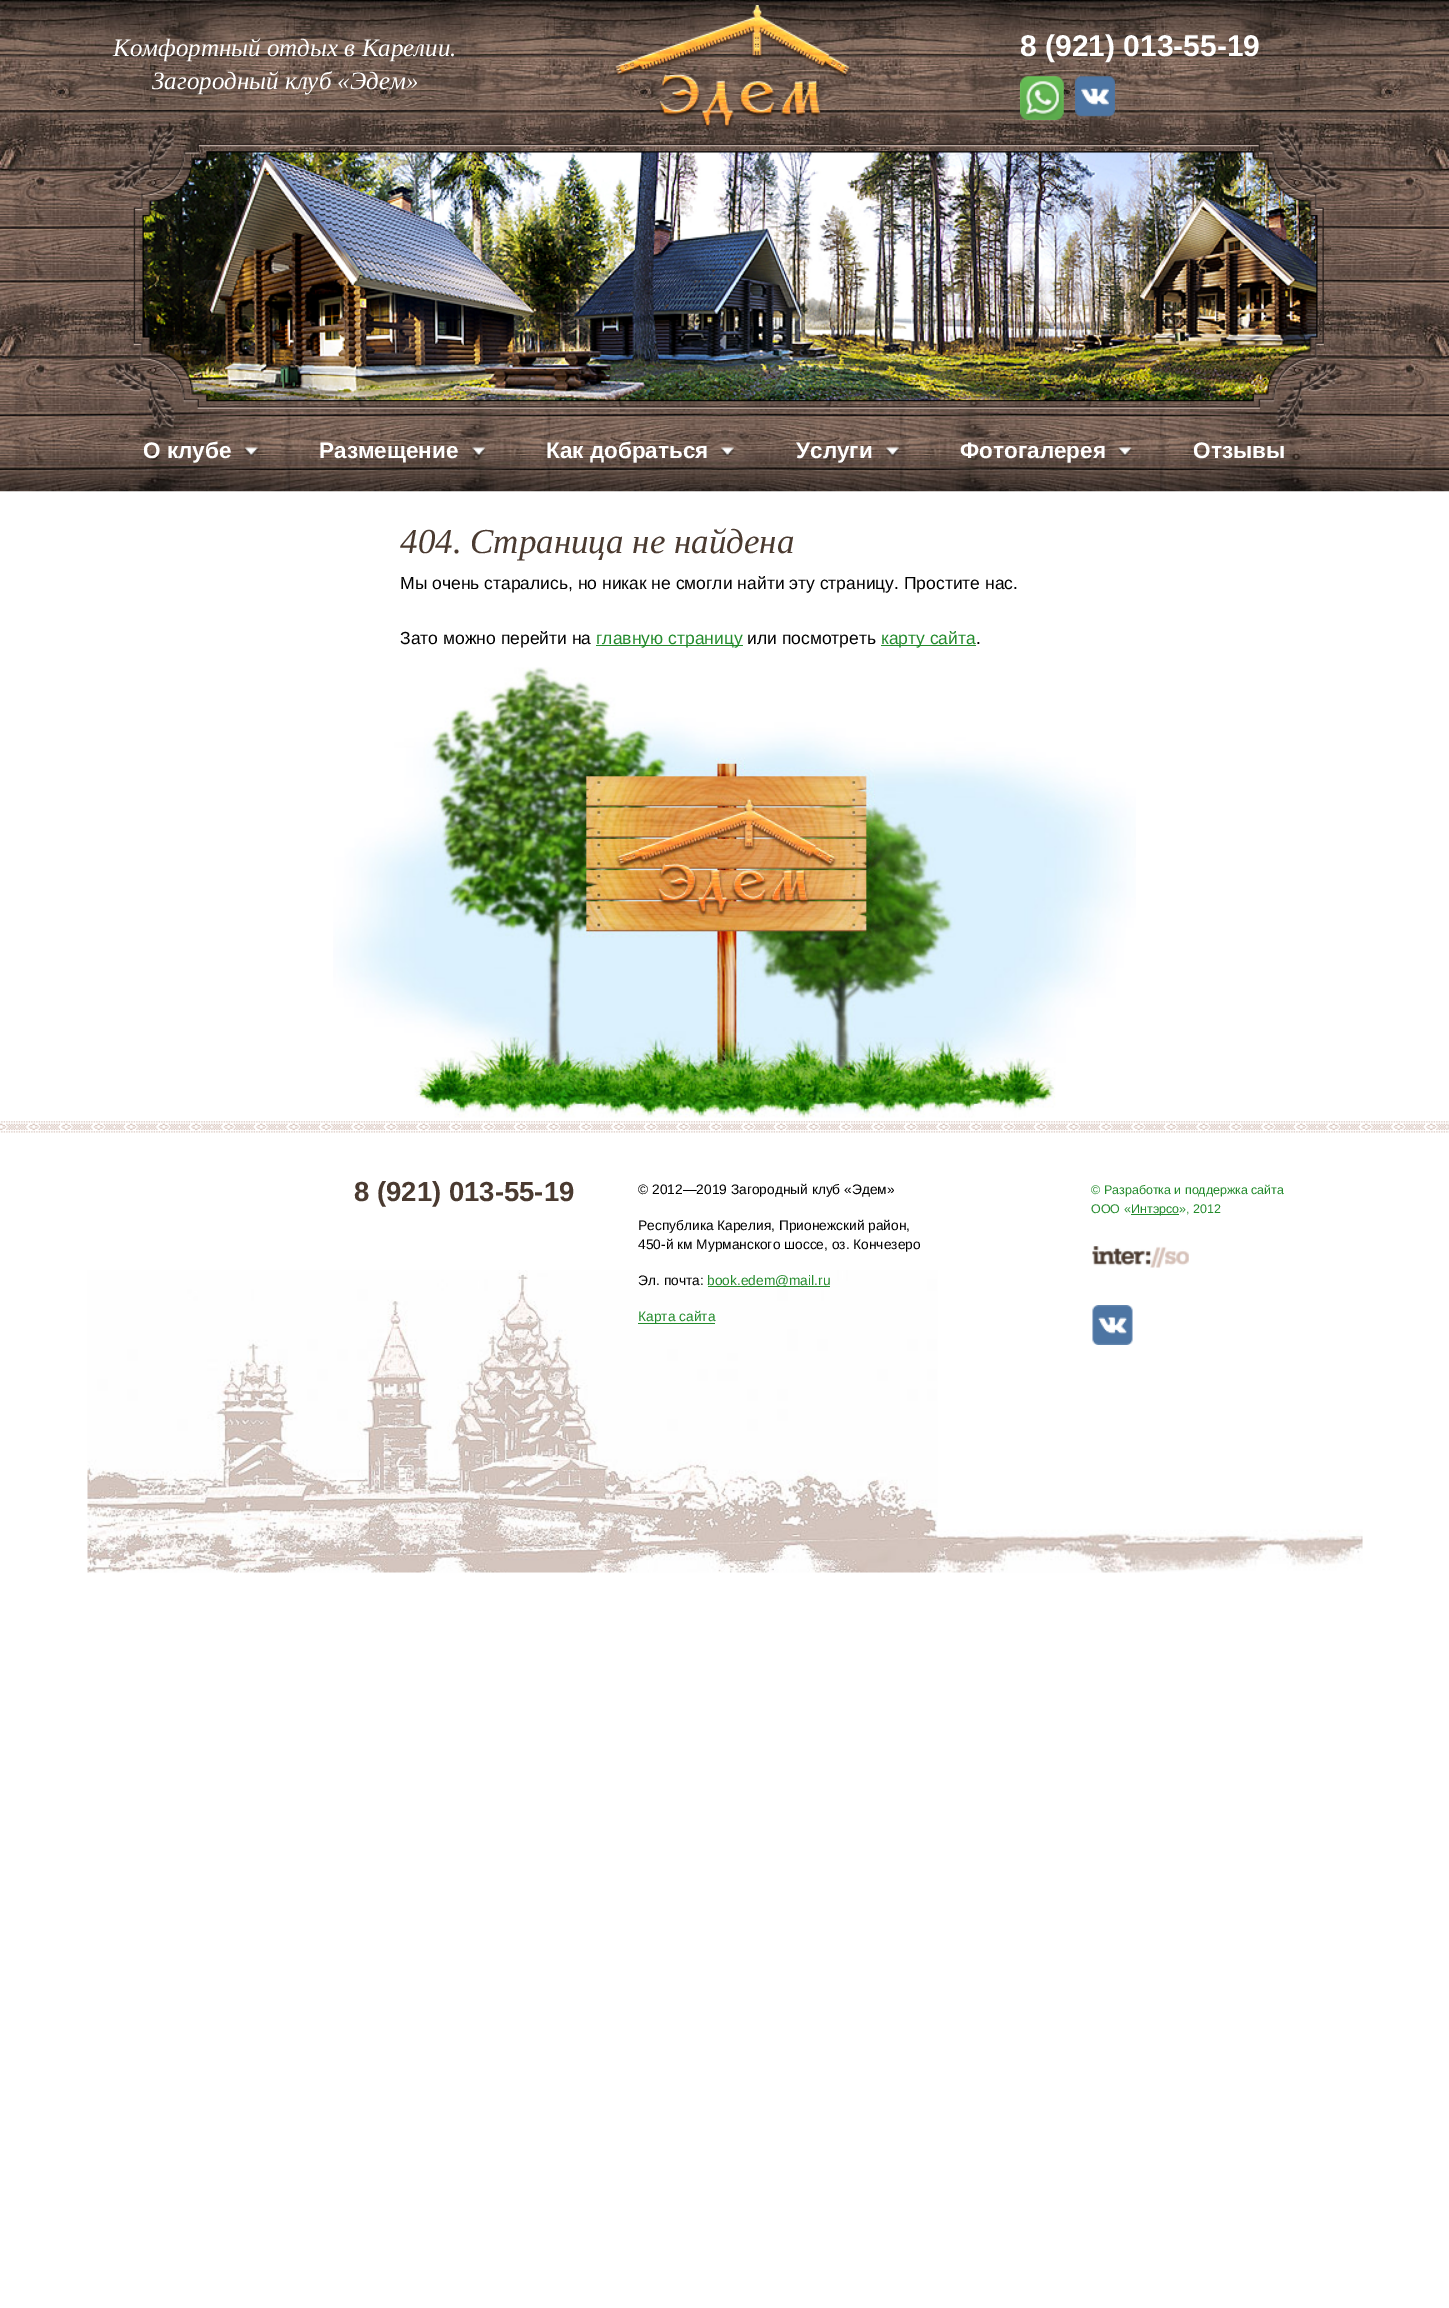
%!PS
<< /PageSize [1449 2308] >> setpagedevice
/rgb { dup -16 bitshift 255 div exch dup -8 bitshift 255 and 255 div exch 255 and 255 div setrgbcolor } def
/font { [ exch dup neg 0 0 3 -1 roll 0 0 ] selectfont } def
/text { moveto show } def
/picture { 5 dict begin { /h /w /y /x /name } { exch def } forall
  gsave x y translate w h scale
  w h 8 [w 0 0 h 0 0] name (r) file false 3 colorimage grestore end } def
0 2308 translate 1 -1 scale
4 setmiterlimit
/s1 { /LiberationSerif-Italic 25 font 16#FFFFFF rgb } def
/s2 { /LiberationSans-Bold 30 font 16#FFFFFF rgb } def
/s3 { /LiberationSans-Bold 22.5 font 16#FFFFFF rgb } def
/s4 { /LiberationSerif-Italic 35 font 16#4A3A30 rgb } def
/s5 { /LiberationSans-Regular 17.5 font 16#000000 rgb } def
/s6 { /LiberationSans-Regular 17.5 font 16#238B2C rgb } def
/s7 { /LiberationSans-Bold 27.5 font 16#4A3A30 rgb } def
/s8 { /LiberationSans-Regular 13.75 font 16#000000 rgb } def
/s9 { /LiberationSans-Regular 13.75 font 16#238B2C rgb } def
/s10 { /LiberationSans-Regular 12.5 font 16#238B2C rgb } def
16#FFFFFF rgb
0 0 1449 2308 rectfill
(pic1.raw) 0 0 1449 492 picture
s1
(Комфортный отдых в Карелии.) 113 56 text
(Загородный клуб «Эдем») 152 89 text
(pic2.raw) 614 5 237 125 picture
s2
(8 \(921\) 013-55-19) 1020 56 text
(pic3.raw) 1020 76 44 44 picture
(pic4.raw) 1075 76 40 41 picture
(pic5.raw) 113 125 1225 303 picture
(pic6.raw) 142 151 1176 251 picture
(pic7.raw) 244 447 14 10 picture
s3
(О клубе) 143 458 text
(pic8.raw) 471 447 15 10 picture
(Размещение) 319 458 text
(pic9.raw) 720 447 15 10 picture
(Как добраться) 546 458 text
(pic10.raw) 885 447 15 10 picture
(Услуги) 796 458 text
(pic11.raw) 1117 447 16 11 picture
(Фотогалерея) 960 458 text
(Отзывы) 1193 458 text
(pic12.raw) 333 667 803 451 picture
s4
(404. Страница не найдена) 400 553 text
s5
(Мы очень старались, но никак не смогли найти эту страницу. Простите нас.) 400 589 text
(Зато можно перейти на) 400 644 text
16#238B2C rgb
596 645 147 1 rectfill
(главную страницу) 596 644 text
s5
(или посмотреть) 747 644 text
16#238B2C rgb
881 645 95 1 rectfill
(карту сайта) 881 644 text
s5
(.) 976 644 text
(pic13.raw) 87 1270 1276 303 picture
(pic14.raw) 0 1121 1449 12 picture
s7
(8 \(921\) 013-55-19) 354 1201 text
s8
(© 2012—2019 Загородный клуб «Эдем») 638 1194 text
(Республика Карелия, Прионежский район,) 638 1230 text
(450-й км Мурманского шоссе, оз. Кончезеро) 638 1249 text
(Эл. почта:) 638 1285 text
16#238B2C rgb
708 1286 122 1 rectfill
(book.edem@mail.ru) 707 1285 text
638 1323 77 1 rectfill
(Карта сайта) 638 1321 text
s10
(© Разработка и поддержка сайта) 1091 1194 text
(ООО «) 1091 1213 text
1131 1214 48 1 rectfill
(Интэрсо», 2012) 1131 1213 text
(pic15.raw) 1092 1246 97 22 picture
(pic16.raw) 1092 1305 41 40 picture
showpage
